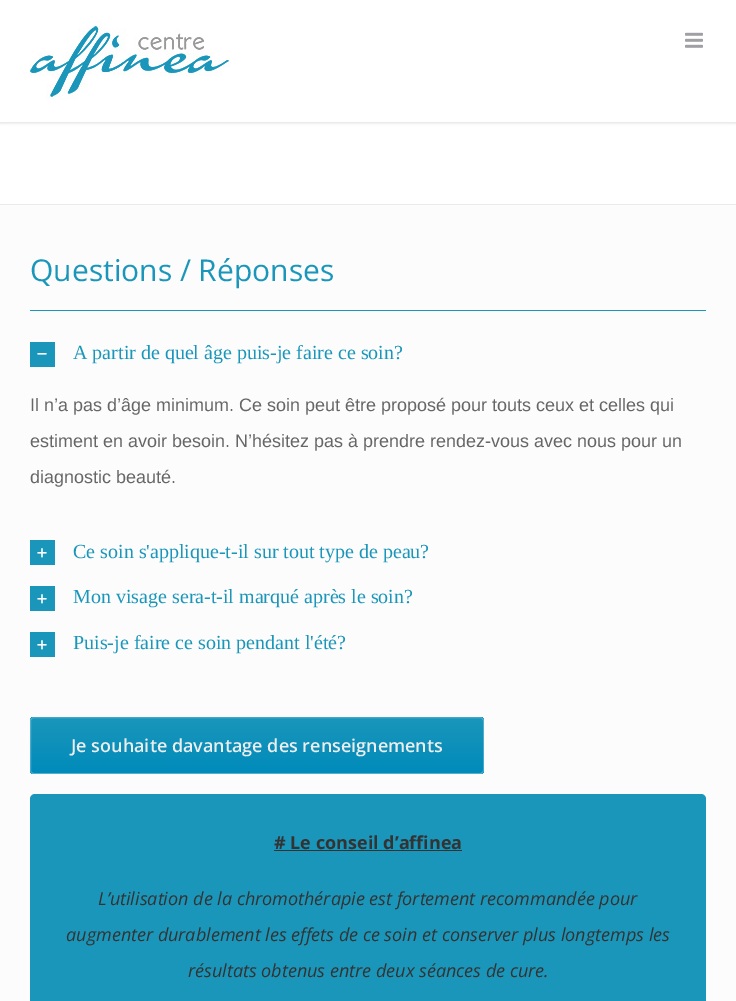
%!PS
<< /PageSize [736 1001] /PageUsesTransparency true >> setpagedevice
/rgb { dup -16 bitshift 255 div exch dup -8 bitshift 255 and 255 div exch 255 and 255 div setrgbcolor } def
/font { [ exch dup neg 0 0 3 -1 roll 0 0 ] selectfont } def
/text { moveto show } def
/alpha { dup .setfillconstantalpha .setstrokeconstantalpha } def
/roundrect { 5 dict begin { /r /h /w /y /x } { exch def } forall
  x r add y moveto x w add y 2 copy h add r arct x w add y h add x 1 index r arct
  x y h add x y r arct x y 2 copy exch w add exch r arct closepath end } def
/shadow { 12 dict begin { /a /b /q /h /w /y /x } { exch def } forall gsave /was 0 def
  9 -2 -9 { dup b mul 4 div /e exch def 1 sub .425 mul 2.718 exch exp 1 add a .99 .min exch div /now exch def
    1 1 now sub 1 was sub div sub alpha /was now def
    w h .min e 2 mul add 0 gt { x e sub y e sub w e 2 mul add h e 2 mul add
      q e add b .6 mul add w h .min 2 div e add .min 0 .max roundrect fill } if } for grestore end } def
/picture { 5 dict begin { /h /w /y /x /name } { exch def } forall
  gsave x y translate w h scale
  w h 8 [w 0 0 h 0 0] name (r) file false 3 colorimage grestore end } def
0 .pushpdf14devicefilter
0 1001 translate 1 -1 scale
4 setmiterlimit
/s1 { /OpenSans-Regular 30 font 16#1A96BA rgb } def
/s2 { /LiberationSerif-Regular 20 font 16#1A96BA rgb } def
/s3 { /LiberationSans-Regular 18 font 16#666666 rgb } def
/s4 { /OpenSans-SemiBold 18 font 16#EDEDED rgb } def
/s5 { /OpenSans-Bold 18 font 16#333333 rgb } def
/s6 { /OpenSans-Italic 18 font 16#333333 rgb } def
16#FFFFFF rgb
0 0 736 1001 rectfill
16#000000 rgb
0 1 736 122 0 1.5 0.12 shadow
16#FFFFFF rgb
0 0 736 122 rectfill
(pic1.raw) 30 20 200 80 picture
(pic2.raw) 685 32 18 16 picture
16#FCFCFC rgb
0 205 736 796 rectfill
16#EAE9E9 rgb
0 204 736 1 rectfill
s1
(Questions / Réponses) 30 281 text
30 310 676 1 rectfill
30 342 25 25 rectfill
(pic3.raw) 37 353 10 2 picture
s2
(A partir de quel âge puis-je faire ce soin?) 73 359 text
s3
(Il n’a pas d’âge minimum. Ce soin peut être proposé pour touts ceux et celles qui) 30 411 text
(estiment en avoir besoin. N’hésitez pas à prendre rendez-vous avec nous pour un) 30 447 text
(diagnostic beauté.) 30 483 text
16#1A96BA rgb
30 540 25 25 rectfill
(pic4.raw) 37 548 10 10 picture
s2
(Ce soin s'applique-t-il sur tout type de peau?) 73 558 text
30 586 25 25 rectfill
(pic4.raw) 37 594 10 10 picture
(Mon visage sera-t-il marqué après le soin?) 73 603 text
30 632 25 25 rectfill
(pic4.raw) 37 640 10 10 picture
(Puis-je faire ce soin pendant l'été?) 73 649 text
gsave
30 717 454 57 4 roundrect clip newpath
gsave 30 717 moveto 484 717 lineto 484 718 lineto 30 718 lineto closepath clip newpath
<< /ShadingType 2 /ColorSpace /DeviceRGB /Coords [257 663 257 718] /Extend [true true] /Function << /FunctionType 2 /Domain [0 1] /C0 [0.102 0.588 0.729] /C1 [0 0.545 0.729] /N 1 >> >> shfill grestore
gsave 30 718 moveto 484 718 lineto 484 773 lineto 30 773 lineto closepath clip newpath
<< /ShadingType 2 /ColorSpace /DeviceRGB /Coords [257 718 257 773] /Extend [true true] /Function << /FunctionType 2 /Domain [0 1] /C0 [0.102 0.588 0.729] /C1 [0 0.545 0.729] /N 1 >> >> shfill grestore
gsave 30 773 moveto 484 773 lineto 484 774 lineto 30 774 lineto closepath clip newpath
<< /ShadingType 2 /ColorSpace /DeviceRGB /Coords [257 773 257 828] /Extend [true true] /Function << /FunctionType 2 /Domain [0 1] /C0 [0.102 0.588 0.729] /C1 [0 0.545 0.729] /N 1 >> >> shfill grestore
grestore
0.25 alpha
16#FFFFFF rgb
30.5 717.5 453 56 3.5 roundrect stroke
1 alpha
s4
(Je souhaite davantage des renseignements) 71 752 text
16#1A96BA rgb
30 794 676 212 5 roundrect fill
s5
(# Le conseil d’affinea) 274 849 text
274 850 188 1 rectfill
s6
(L’utilisation de la chromothérapie est fortement recommandée pour) 98 905 text
(augmenter durablement les effets de ce soin et conserver plus longtemps les) 66 941 text
(résultats obtenus entre deux séances de cure.) 188 977 text
.poppdf14devicefilter showpage
